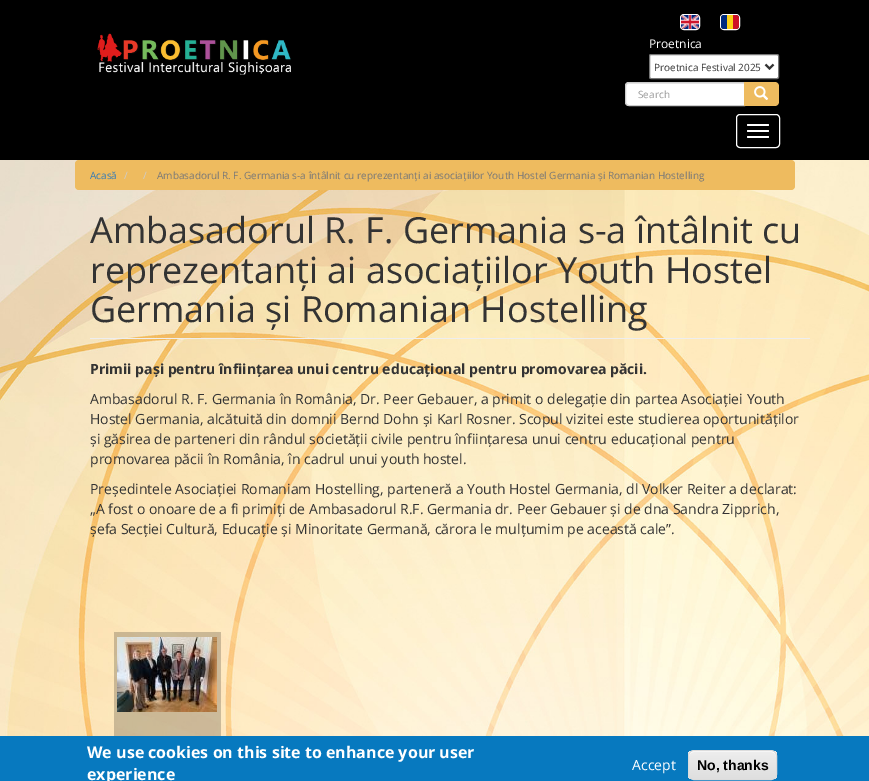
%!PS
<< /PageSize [869 781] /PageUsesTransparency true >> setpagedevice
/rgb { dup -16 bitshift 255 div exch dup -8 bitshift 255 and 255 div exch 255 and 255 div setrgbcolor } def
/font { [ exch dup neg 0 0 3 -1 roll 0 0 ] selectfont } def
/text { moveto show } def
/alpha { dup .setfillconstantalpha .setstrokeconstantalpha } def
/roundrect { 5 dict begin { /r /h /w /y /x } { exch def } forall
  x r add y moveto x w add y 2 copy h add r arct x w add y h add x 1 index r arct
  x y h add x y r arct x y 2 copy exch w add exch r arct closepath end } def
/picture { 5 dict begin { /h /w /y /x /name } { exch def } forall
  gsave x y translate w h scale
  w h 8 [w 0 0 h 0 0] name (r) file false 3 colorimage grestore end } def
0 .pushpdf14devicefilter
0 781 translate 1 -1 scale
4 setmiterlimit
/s1 { /OpenSans-Regular 12 font 16#FFFFFF rgb } def
/s2 { /OpenSans-Regular 10 font 16#333333 rgb } def
/s3 { /OpenSans-Regular 10 font 16#999999 rgb } def
/s4 { /OpenSans-Regular 10 font 16#337AB7 rgb } def
/s5 { /OpenSans-Regular 10 font 16#CCCCCC rgb } def
/s6 { /OpenSans-Regular 10 font 16#777777 rgb } def
/s7 { /OpenSans-Regular 36 font 16#333333 rgb } def
/s8 { /OpenSans-Bold 14 font 16#333333 rgb } def
/s9 { /OpenSans-Regular 14 font 16#333333 rgb } def
/s10 { /OpenSans-Bold 16 font 16#FFFFFF rgb } def
/s11 { /OpenSans-Regular 14 font 16#FFFFFF rgb } def
/s12 { /LiberationSans-Bold 14 font 16#000000 rgb } def
16#FFFFFF rgb
0 0 869 781 rectfill
(pic1.raw) 0 160 869 576 picture
16#000000 rgb
0 0 869 160 rectfill
16#FFFFFF rgb
680.5 14.5 19 15 3.5 roundrect stroke
(pic2.raw) 681 15 18 14 picture
720.5 14.5 19 15 3.5 roundrect stroke
(pic3.raw) 721 15 18 14 picture
(pic4.raw) 97 33 194 42 picture
s1
(Proetnica) 649 48 text
649.5 54.5 129 24 1.5 roundrect gsave fill grestore
16#767676 rgb
stroke
16#333333 rgb
2 setlinewidth
765.5 64.5 moveto 769.5 68.5 lineto 773.5 64.5 lineto stroke
s2
(Proetnica Festival 2025) 654 71 text
16#FFFFFF rgb
629 82 moveto 745 82 lineto 745 106 lineto 629 106 lineto 627 106 625 104 625 102 curveto 625 86 lineto 625 84 627 82 629 82 curveto closepath fill
16#ECECEC rgb
629 84 moveto 744 84 lineto 744 83 lineto 629 83 lineto 627 83 626 84 626 86 curveto 626 87 lineto 626 85 627 84 629 84 curveto closepath fill
16#CCCCCC rgb
1 setlinewidth
629 82.5 moveto 744.5 82.5 lineto 744.5 105.5 lineto 629 105.5 lineto 627 105.5 625.5 104 625.5 102 curveto 625.5 86 lineto 625.5 84 627 82.5 629 82.5 curveto closepath stroke
s3
(Search) 638 98 text
16#EEBB5F rgb
744 82 moveto 775 82 lineto 777 82 779 84 779 86 curveto 779 102 lineto 779 104 777 106 775 106 curveto 744 106 lineto closepath fill
(pic5.raw) 754 86 15 14 picture
16#FFFFFF rgb
736.5 114.5 43 33 3.5 roundrect stroke
747 124 22 2 1 roundrect fill
747 130 22 2 1 roundrect fill
747 136 22 2 1 roundrect fill
16#EEBB5F rgb
75 160 720 30 4 roundrect fill
s4
(Acasă) 90 179 text
s5
(/) 124 179 text
(/) 143 179 text
s6
(Ambasadorul R. F. Germania s-a întâlnit cu reprezentanți ai asociațiilor Youth Hostel Germania și Romanian Hostelling) 157 179 text
16#EEEEEE rgb
90 338 720 1 rectfill
s7
(Ambasadorul R. F. Germania s-a întâlnit cu) 90 243 text
(reprezentanți ai asociațiilor Youth Hostel) 90 283 text
(Germania și Romanian Hostelling) 90 322 text
s8
(Primii pași pentru înființarea unui centru educațional pentru promovarea păcii.) 90 374 text
s9
(Ambasadorul R. F. Germania în România, Dr. Peer Gebauer, a primit o delegație din partea Asociației Youth) 90 404 text
(Hostel Germania, alcătuită din domnii Bernd Dohn și Karl Rosner. Scopul vizitei este studierea oportunităților) 90 424 text
(și găsirea de parteneri din rândul societății civile pentru înființaresa unui centru educațional pentru) 90 444 text
(promovarea păcii în România, în cadrul unui youth hostel.) 90 464 text
(Președintele Asociației Romaniam Hostelling, parteneră a Youth Hostel Germania, dl Volker Reiter a declarat:) 90 494 text
(„A fost o onoare de a fi primiți de Ambasadorul R.F. Germania dr. Peer Gebauer și de dna Sandra Zipprich,) 90 514 text
(șefa Secției Cultură, Educație și Minoritate Germană, cărora le mulțumim pe această cale”.) 90 534 text
0.2 alpha
16#000000 rgb
114 632 107 104 rectfill
1 alpha
(pic6.raw) 117 637 100 75 picture
16#0779BF rgb
0 736 869 45 rectfill
s10
(We use cookies on this site to enhance your user) 87 758 text
(experience) 87 780 text
s11
(Accept) 632 770 text
gsave
688 750 89 30 6 roundrect clip newpath
gsave 688 751 moveto 777 751 lineto 777 779 lineto 688 779 lineto closepath clip newpath
<< /ShadingType 2 /ColorSpace /DeviceRGB /Coords [733 751 733 779] /Extend [true true] /Function << /FunctionType 3 /Domain [0 1] /Functions [<< /FunctionType 2 /Domain [0 1] /C0 [0.929 0.929 0.929] /C1 [0.929 0.929 0.929] /N 1 >> << /FunctionType 2 /Domain [0 1] /C0 [0.929 0.929 0.929] /C1 [0.875 0.875 0.875] /N 1 >>] /Bounds [0.05] /Encode [0 1 0 1] >> >> shfill grestore
grestore
694 752 moveto 771 752 lineto 774 752 776 754 776 757 curveto 776 748 764 751 758 751 curveto 707 751 lineto 701 751 689 748 689 757 curveto 689 754 691 752 694 752 curveto closepath fill
16#DCDCDC rgb
688.5 750.5 88 29 5.5 roundrect stroke
s12
(No, thanks) 697 770 text
.poppdf14devicefilter showpage
